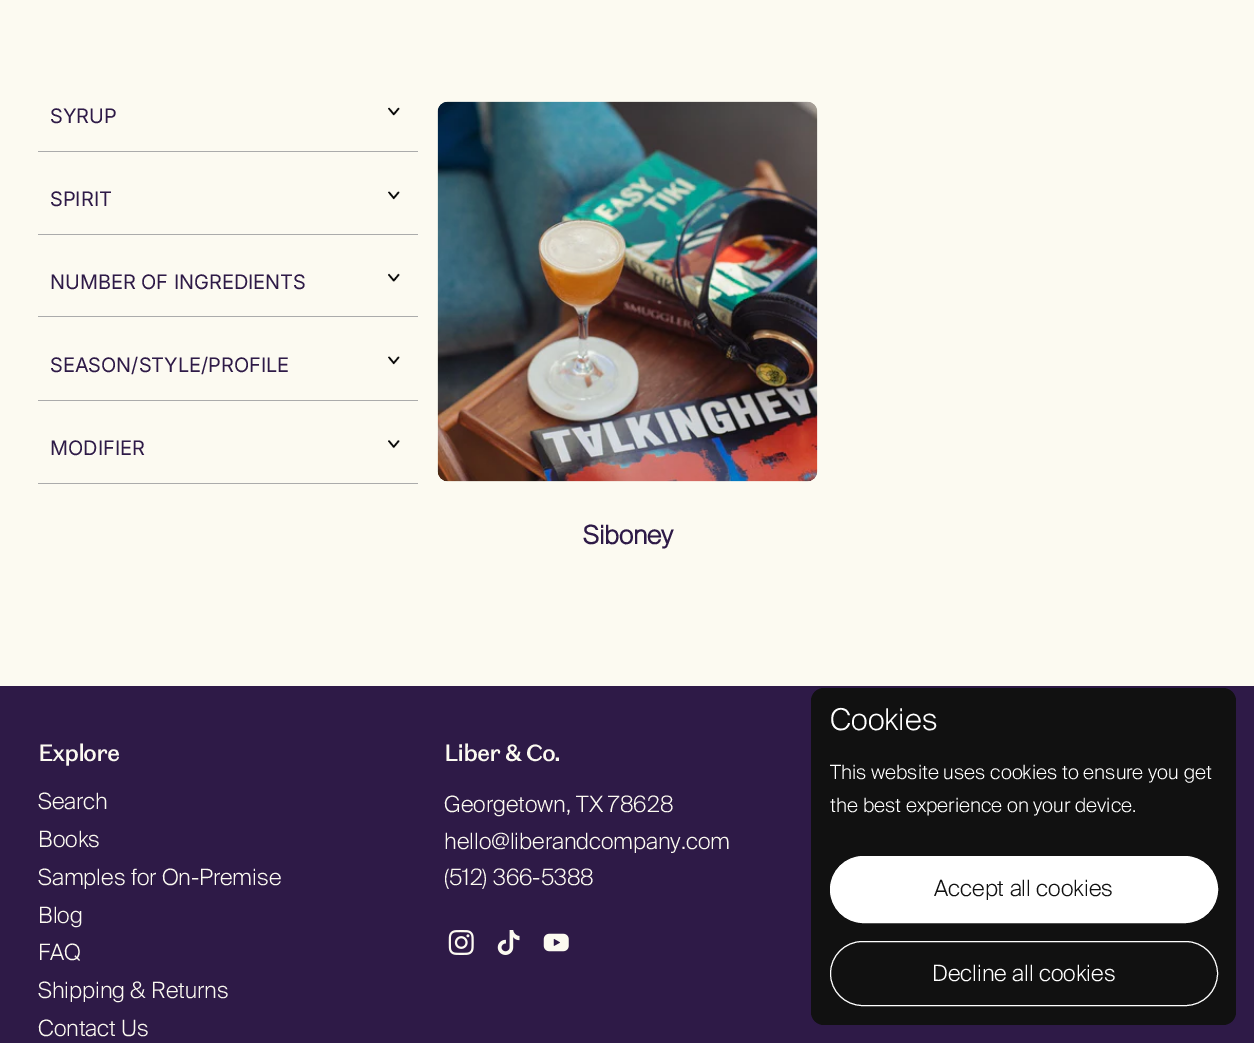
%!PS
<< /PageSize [1254 1043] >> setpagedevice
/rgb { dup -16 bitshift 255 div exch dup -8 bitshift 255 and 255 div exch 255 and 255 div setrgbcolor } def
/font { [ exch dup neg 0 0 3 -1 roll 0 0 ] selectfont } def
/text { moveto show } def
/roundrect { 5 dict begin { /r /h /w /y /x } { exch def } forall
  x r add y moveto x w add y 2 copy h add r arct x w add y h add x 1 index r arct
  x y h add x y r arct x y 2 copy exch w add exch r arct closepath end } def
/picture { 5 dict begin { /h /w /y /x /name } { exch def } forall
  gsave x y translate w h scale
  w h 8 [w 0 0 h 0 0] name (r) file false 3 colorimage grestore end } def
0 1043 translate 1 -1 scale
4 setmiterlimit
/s1 { /Inter-Regular 20 font 16#2E1A47 rgb } def
/s2 { /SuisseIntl-Bold 25.5 font 16#2E1A47 rgb } def
/s3 { /SuisseIntl-Light 22.5 font 16#FCFAF1 rgb } def
/s4 { /SuisseIntl-Light 30 font 16#FFFFFF rgb } def
/s5 { /SuisseIntl-Light 19.7 font 16#FFFFFF rgb } def
/s6 { /SuisseIntl-Light 22.5 font 16#111111 rgb } def
/s7 { /SuisseIntl-Light 22.5 font 16#FFFFFF rgb } def
16#FCFAF1 rgb
0 0 1254 1043 rectfill
16#ABABAB rgb
38 151 380 1 rectfill
s1
(SYRUP) 50 123 text
(pic1.raw) 388 107 12 9 picture
16#ABABAB rgb
38 234 380 1 rectfill
s1
(SPIRIT) 50 206 text
(pic2.raw) 388 191 12 9 picture
16#ABABAB rgb
38 316 380 1 rectfill
s1
(NUMBER OF INGREDIENTS) 50 289 text
(pic3.raw) 388 273 12 9 picture
16#ABABAB rgb
38 400 380 1 rectfill
s1
(SEASON/STYLE/PROFILE) 50 372 text
(pic2.raw) 388 356 12 9 picture
16#ABABAB rgb
38 483 380 1 rectfill
s1
(MODIFIER) 50 455 text
(pic4.raw) 388 440 12 9 picture
(pic5.raw) 437 101 381 381 picture
s2
(Siboney) 583 544 text
0 686 1254 357 rectfill
/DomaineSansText-Bold 22.5 font
16#FCFAF1 rgb
38 761 moveto -0.75 0 (Explore) ashow
s3
(Search) 38 809 text
(Books) 38 847 text
(Samples for On-Premise) 38 885 text
(Blog) 38 923 text
(FAQ) 38 960 text
(Shipping & Returns) 38 998 text
(Contact Us) 38 1036 text
/DomaineSansText-Bold 22.5 font
444 761 moveto -0.75 0 (Liber & Co.) ashow
s3
(Georgetown, TX 78628) 444 812 text
(hello@liberandcompany.com) 444 849 text
(\(512\) 366-5388) 444 885 text
(pic6.raw) 448 930 26 25 picture
(pic7.raw) 497 930 23 25 picture
(pic8.raw) 543 933 26 19 picture
16#111111 rgb
811 688 425 337 13 roundrect fill
s4
(Cookies) 830 730 text
s5
(This website uses cookies to ensure you get) 830 779 text
(the best experience on your device.) 830 812 text
830.5 856.5 387 66 33 roundrect gsave fill grestore
stroke
s6
(Accept all cookies) 934 896 text
16#FFFFFF rgb
830.5 941.5 387 64 32 roundrect stroke
(Decline all cookies) 932 981 text
showpage
